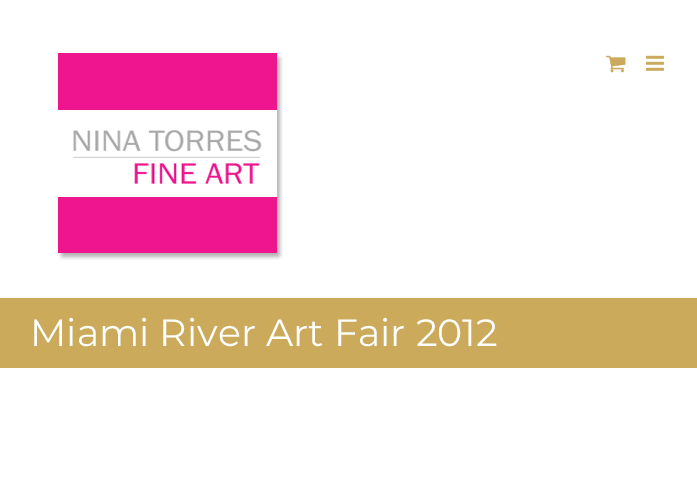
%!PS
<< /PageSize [697 478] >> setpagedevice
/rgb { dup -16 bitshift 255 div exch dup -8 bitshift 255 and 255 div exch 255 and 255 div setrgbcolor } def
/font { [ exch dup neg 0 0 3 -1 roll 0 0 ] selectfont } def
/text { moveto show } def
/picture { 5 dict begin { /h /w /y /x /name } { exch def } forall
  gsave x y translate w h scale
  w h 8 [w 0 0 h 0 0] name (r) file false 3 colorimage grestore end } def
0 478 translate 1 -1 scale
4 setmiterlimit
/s1 { /Montserrat-Regular 38 font 16#FFFFFF rgb } def
16#FFFFFF rgb
0 0 697 478 rectfill
(pic1.raw) 58 53 225 207 picture
(pic2.raw) 606 55 20 18 picture
(pic3.raw) 646 55 18 16 picture
16#CBAA5C rgb
0 298 697 70 rectfill
s1
(Miami River Art Fair 2012) 30 346 text
showpage
